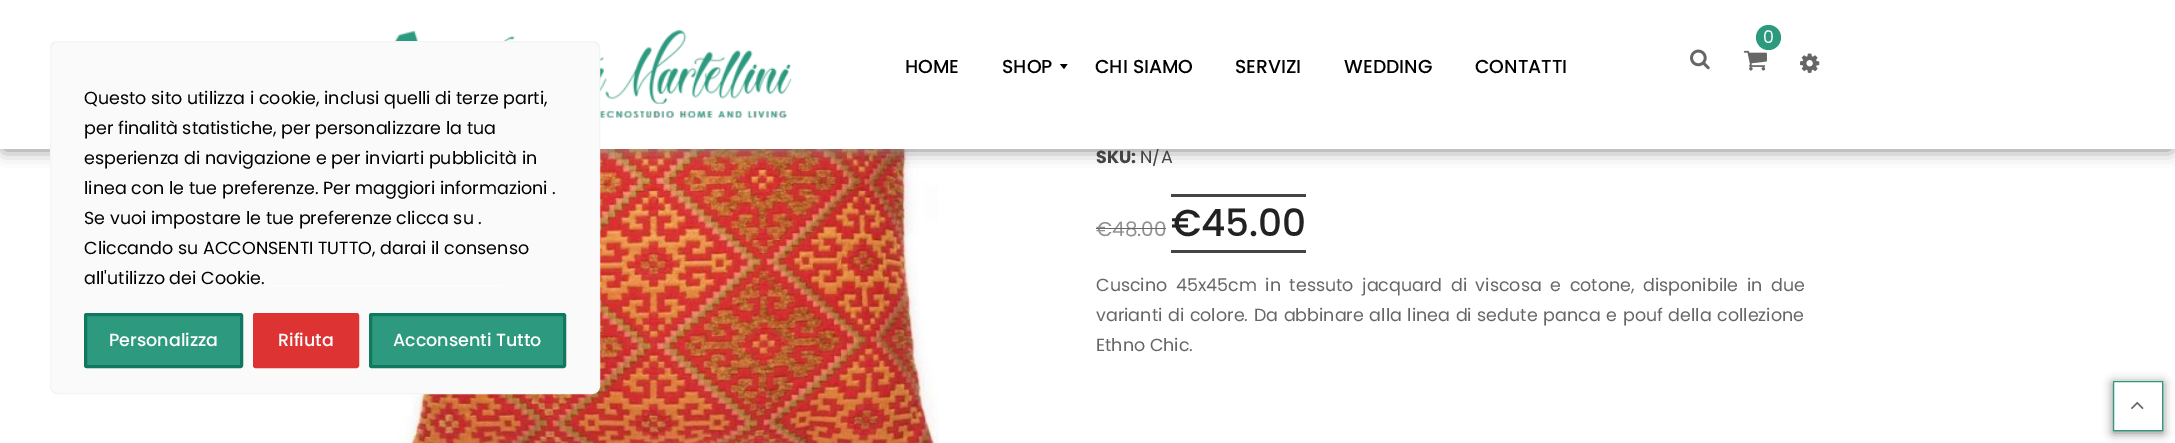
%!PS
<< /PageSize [2175 443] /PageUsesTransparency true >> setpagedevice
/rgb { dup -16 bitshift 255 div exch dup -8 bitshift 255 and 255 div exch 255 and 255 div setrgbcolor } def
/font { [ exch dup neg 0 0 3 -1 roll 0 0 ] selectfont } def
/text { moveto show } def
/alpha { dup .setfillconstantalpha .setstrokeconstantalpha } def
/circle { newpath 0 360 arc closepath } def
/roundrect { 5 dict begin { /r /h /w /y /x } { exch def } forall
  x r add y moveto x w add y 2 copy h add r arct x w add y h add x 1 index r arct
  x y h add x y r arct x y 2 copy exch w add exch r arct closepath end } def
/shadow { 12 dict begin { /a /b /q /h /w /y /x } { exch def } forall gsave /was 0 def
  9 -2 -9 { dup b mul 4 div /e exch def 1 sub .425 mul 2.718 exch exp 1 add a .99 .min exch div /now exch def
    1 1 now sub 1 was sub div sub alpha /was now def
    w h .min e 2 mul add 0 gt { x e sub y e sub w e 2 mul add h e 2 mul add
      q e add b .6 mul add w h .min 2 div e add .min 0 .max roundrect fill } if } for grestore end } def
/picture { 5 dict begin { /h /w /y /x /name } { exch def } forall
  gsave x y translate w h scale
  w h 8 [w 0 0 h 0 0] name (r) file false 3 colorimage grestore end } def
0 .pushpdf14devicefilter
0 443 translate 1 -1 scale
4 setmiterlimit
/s1 { /Poppins-Regular 17.5 font 16#444444 rgb } def
/s2 { /Poppins-Regular 17.5 font 16#FFFFFF rgb } def
/s3 { /Poppins-Medium 18.75 font 16#000000 rgb } def
/s4 { /Poppins-Regular 17.5 font 16#000000 rgb } def
/s5 { /Poppins-Medium 17.5 font 16#FFFFFF rgb } def
/s6 { /Poppins-Bold 17.5 font 16#444444 rgb } def
/s7 { /Poppins-Regular 20 font 16#909090 rgb } def
/s8 { /Poppins-Medium 37.5 font 16#222222 rgb } def
/s9 { /Poppins-Regular 17.5 font 16#666666 rgb } def
16#FFFFFF rgb
0 0 2175 443 rectfill
(pic5.raw) 398 149 541 294 picture
16#808080 rgb
4 9 2167 141 0 8 1 shadow
s1
(N/A) 1140 163 text
16#FFFFFF rgb
0 0 2175 149 rectfill
(pic1.raw) 394 30 398 88 picture
16#2D9A7F rgb
1768.5 37.5 12.5 circle fill
s2
(0) 1763 43 text
(pic2.raw) 1743 50 24 21 picture
(pic3.raw) 1690 49 20 21 picture
(pic4.raw) 1800 53 20 20 picture
s3
(HOME) 905 73 text
(SHOP) 1002 73 text
1060 64 moveto 1067.5 64 lineto 1064 69 lineto closepath fill
(CHI SIAMO) 1095 73 text
(SERVIZI) 1235 73 text
(WEDDING) 1344 73 text
(CONTATTI) 1475 73 text
gsave
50 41 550 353 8 roundrect clip newpath
16#ACABAB rgb
50 40 550 353 8 6 0.3 shadow
grestore
16#FAFAFA rgb
50.5 41.5 549 352 7.5 roundrect gsave fill grestore
16#F4F4F4 rgb
stroke
s4
(Questo sito utilizza i cookie, inclusi quelli di terze parti,) 84 104 text
(per finalità statistiche, per personalizzare la tua) 84 134 text
(esperienza di navigazione e per inviarti pubblicità in) 84 164 text
(linea con le tue preferenze. Per maggiori informazioni .) 84 194 text
(Se vuoi impostare le tue preferenze clicca su .) 84 224 text
(Cliccando su ACCONSENTI TUTTO, darai il consenso) 84 254 text
(all'utilizzo dei Cookie.) 84 284 text
16#FFFFFF rgb
270 285 231 1 rectfill
16#2D9A7F rgb
85.5 314.5 156 52 1 roundrect gsave fill grestore
16#0F785E rgb
3 setlinewidth
stroke
s5
(Personalizza) 109 346 text
16#DD3333 rgb
254.5 314.5 103 52 1 roundrect gsave fill grestore
stroke
s5
(Rifiuta) 278 346 text
16#2D9A7F rgb
370.5 314.5 194 52 1 roundrect gsave fill grestore
16#0F785E rgb
stroke
s5
(Acconsenti Tutto) 393 346 text
s6
(SKU:) 1096 163 text
s7
(€) 1096 236 text
(48.00) 1112 236 text
16#666666 rgb
1113 228 53 1 rectfill
1096 228 17 1 rectfill
s8
(€) 1171 236 text
16#444444 rgb
1171 250 135 3 rectfill
s8
(45.00) 1201 236 text
16#444444 rgb
1171 194 135 3 rectfill
/Poppins-Regular 17.5 font
16#666666 rgb
1096 291 moveto 3.9 0 32 (Cuscino 45x45cm in tessuto jacquard di viscosa e cotone, disponibile in due) widthshow
1096 321 moveto 1 0 32 (varianti di colore. Da abbinare alla linea di sedute panca e pouf della collezione) widthshow
(Ethno Chic.) 1096 351 text
16#000000 rgb
2113 383 50 50 0 5 0.5 shadow
16#FFFFFF rgb
2113.5 381.5 moveto 2162.5 381.5 lineto 2162.5 430.5 lineto 2113.5 430.5 lineto closepath gsave fill grestore
16#2D9A7F rgb
1 setlinewidth
stroke
(pic6.raw) 2131 401 13 9 picture
.poppdf14devicefilter showpage
